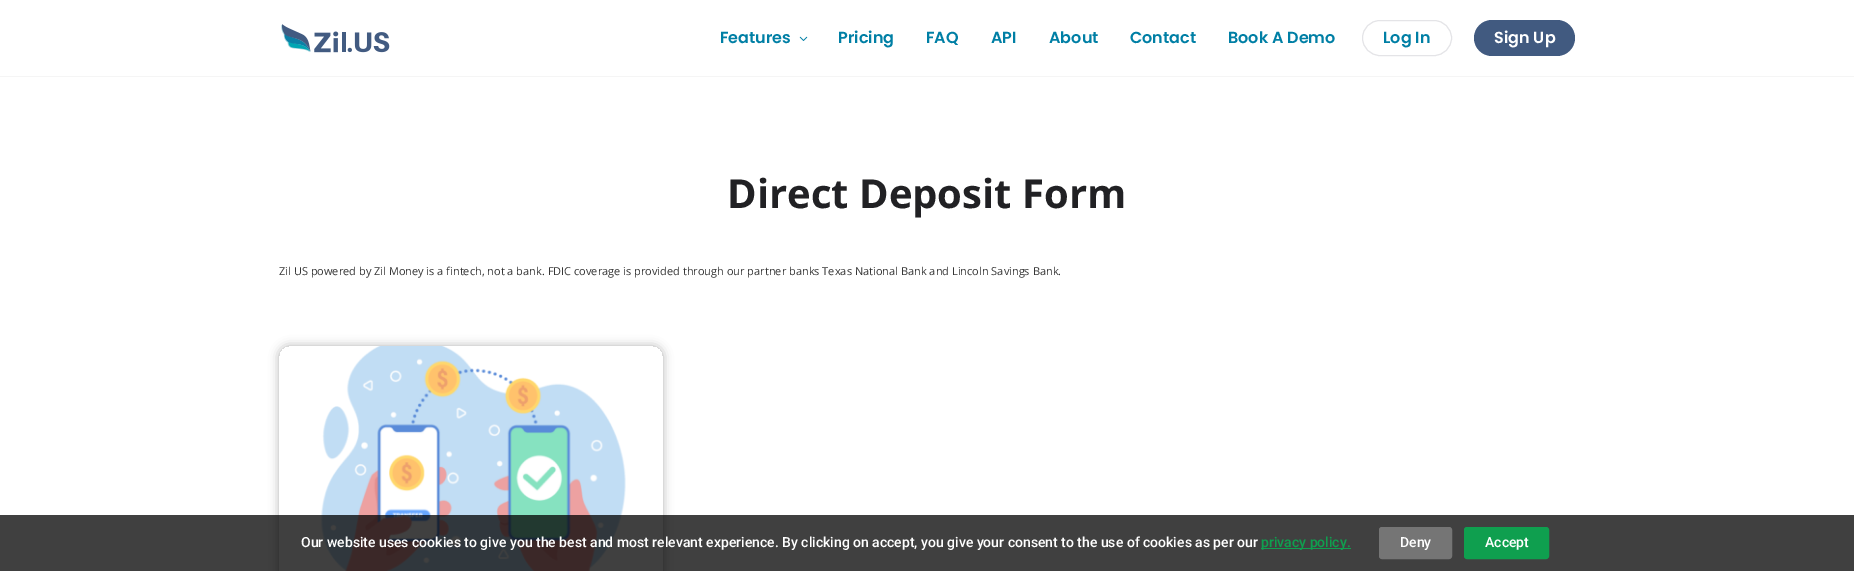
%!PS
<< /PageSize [1854 571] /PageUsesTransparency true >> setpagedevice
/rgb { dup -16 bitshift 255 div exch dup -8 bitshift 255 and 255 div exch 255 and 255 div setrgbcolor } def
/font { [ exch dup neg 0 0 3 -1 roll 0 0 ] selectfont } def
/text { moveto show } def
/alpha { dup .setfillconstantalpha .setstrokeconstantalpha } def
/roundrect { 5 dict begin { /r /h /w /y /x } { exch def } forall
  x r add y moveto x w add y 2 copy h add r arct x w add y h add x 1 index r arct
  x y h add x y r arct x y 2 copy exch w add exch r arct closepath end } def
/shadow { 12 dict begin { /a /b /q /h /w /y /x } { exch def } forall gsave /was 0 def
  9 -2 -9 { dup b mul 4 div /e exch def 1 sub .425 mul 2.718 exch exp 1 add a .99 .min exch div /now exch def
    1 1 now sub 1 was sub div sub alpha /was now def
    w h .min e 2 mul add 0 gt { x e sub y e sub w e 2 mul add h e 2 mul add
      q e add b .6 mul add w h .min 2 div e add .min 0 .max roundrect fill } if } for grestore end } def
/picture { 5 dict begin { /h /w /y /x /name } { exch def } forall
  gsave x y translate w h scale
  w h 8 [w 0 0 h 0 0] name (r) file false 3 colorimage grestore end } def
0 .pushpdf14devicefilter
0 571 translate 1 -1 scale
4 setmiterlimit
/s1 { /Poppins-SemiBold 16 font 16#007FA5 rgb } def
/s2 { /Poppins-SemiBold 16 font 16#FFFFFF rgb } def
/s3 { /OpenSans-Bold 40 font 16#212124 rgb } def
/s4 { /OpenSans-Regular 11 font 16#363636 rgb } def
/s5 { /Roboto-Medium 14 font 16#FFFFFF rgb } def
/s6 { /Roboto-Medium 14 font 16#0F9F4F rgb } def
16#FFFFFF rgb
0 0 1854 571 rectfill
16#F5F5F5 rgb
0 76 1854 1 rectfill
(pic1.raw) 281 24 109 29 picture
s1
(Features) 720 43 text
(pic2.raw) 799 36 9 5 picture
(Pricing) 838 43 text
(FAQ) 926 43 text
(API) 991 43 text
(About) 1049 43 text
(Contact) 1130 43 text
(Book A Demo) 1228 43 text
16#E4E4E7 rgb
1362.5 20.5 89 35 17.5 roundrect stroke
s1
(Log In) 1383 43 text
16#415A80 rgb
1474 20 101 36 18 roundrect fill
s2
(Sign Up) 1494 43 text
s3
(Direct Deposit Form) 727 208 text
s4
(Zil US powered by Zil Money is a fintech, not a bank. FDIC coverage is provided through our partner banks Texas National Bank and Lincoln Savings Bank.) 279 275 text
gsave
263 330 moveto 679 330 lineto 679 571 lineto 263 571 lineto closepath 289 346 moveto 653 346 lineto 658.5 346 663 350.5 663 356 curveto 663 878 lineto 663 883.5 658.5 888 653 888 curveto 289 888 lineto 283.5 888 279 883.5 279 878 curveto 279 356 lineto 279 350.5 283.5 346 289 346 curveto closepath eoclip newpath
16#000000 rgb
279 346 384 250 10 5 0.3 shadow
grestore
(pic3.raw) 321 346 305 225 picture
0.75 alpha
16#000000 rgb
0 515 1854 56 rectfill
1 alpha
s5
(Our website uses cookies to give you the best and most relevant experience. By clicking on accept, you give your consent to the use of cookies as per our) 301 547 text
16#0F9F4F rgb
1261 548 90 1 rectfill
(privacy policy.) 1261 547 text
16#757575 rgb
1379.5 527.5 72 31 2.5 roundrect gsave fill grestore
stroke
s5
(Deny) 1400 547 text
16#0F9F4F rgb
1464.5 527.5 84 31 2.5 roundrect gsave fill grestore
stroke
s5
(Accept) 1485 547 text
.poppdf14devicefilter showpage
